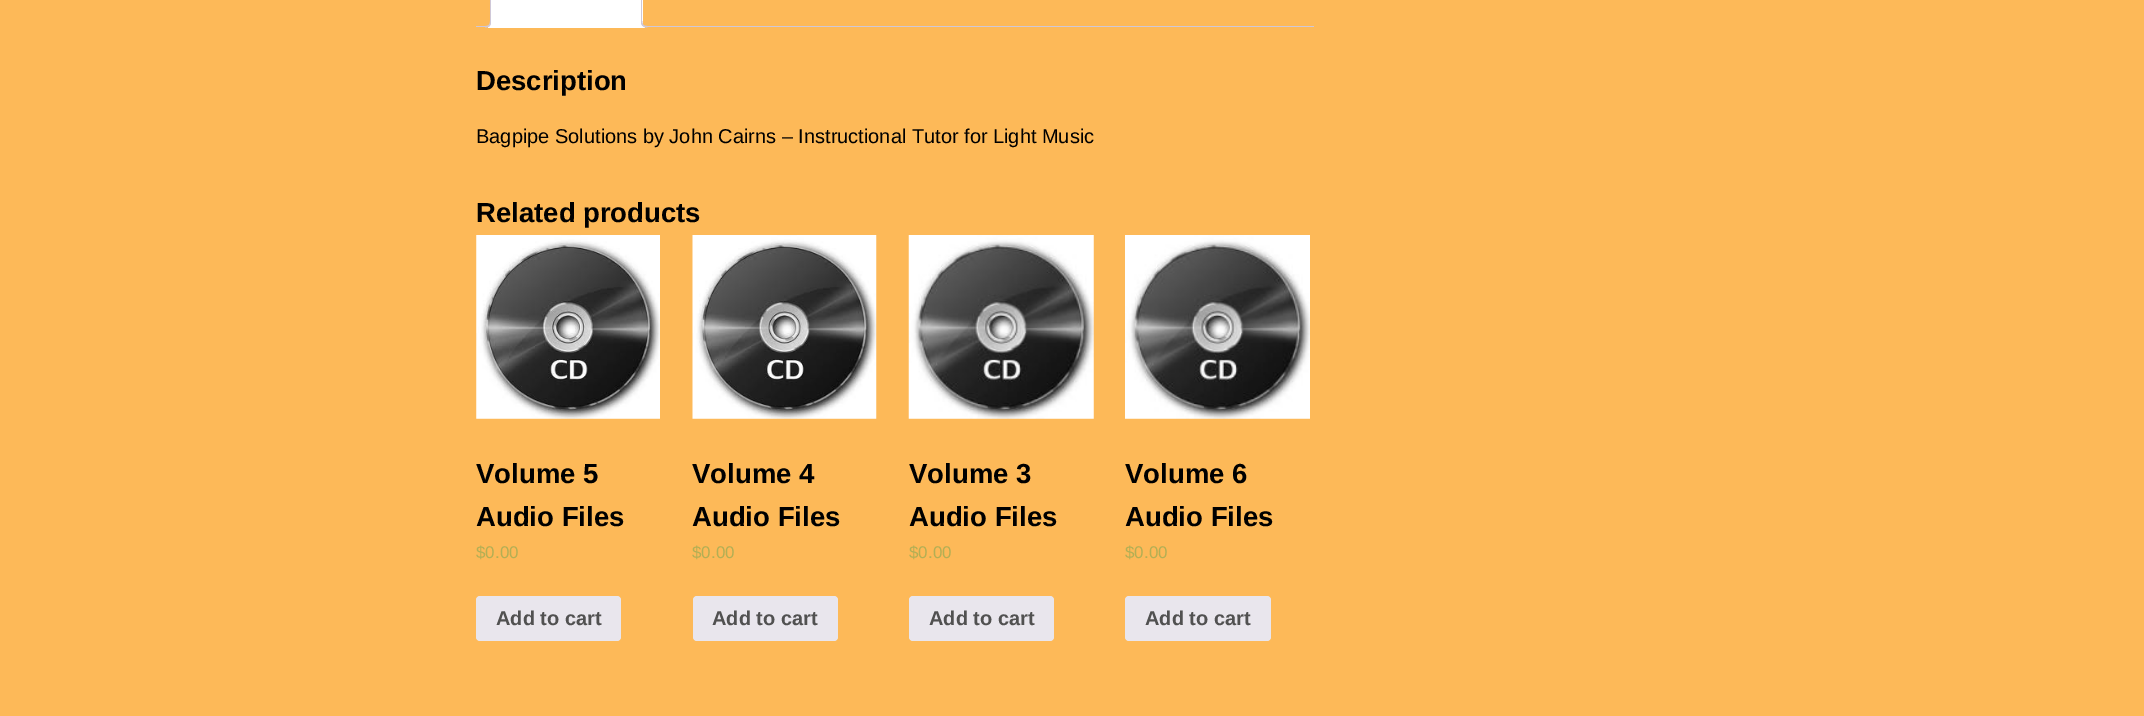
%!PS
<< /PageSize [2144 716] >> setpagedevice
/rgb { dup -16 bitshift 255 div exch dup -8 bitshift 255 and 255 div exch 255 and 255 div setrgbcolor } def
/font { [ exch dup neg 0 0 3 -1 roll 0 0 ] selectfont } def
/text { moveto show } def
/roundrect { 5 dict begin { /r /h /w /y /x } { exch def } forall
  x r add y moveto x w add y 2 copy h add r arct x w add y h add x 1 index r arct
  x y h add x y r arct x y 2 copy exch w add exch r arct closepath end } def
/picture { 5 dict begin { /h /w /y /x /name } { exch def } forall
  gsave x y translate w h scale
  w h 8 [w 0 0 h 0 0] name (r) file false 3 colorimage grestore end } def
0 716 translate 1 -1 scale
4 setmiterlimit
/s1 { /LiberationSans-Bold 27.5 font 16#000000 rgb } def
/s2 { /LiberationSans-Regular 20 font 16#000000 rgb } def
/s3 { /LiberationSans-Regular 17 font 16#B3AF54 rgb } def
/s4 { /LiberationSans-Bold 20 font 16#515151 rgb } def
16#FDB958 rgb
0 0 2144 716 rectfill
16#CFC8D8 rgb
476 26 838 1 rectfill
16#FFFFFF rgb
491 0 152 27 rectfill
16#CFC8D8 rgb
641 -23 moveto 642 -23 642 -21 642 -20 curveto 642 27 lineto 641 26 lineto 641 -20 lineto 640 -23 lineto closepath fill
16#FFFFFF rgb
642 28 moveto 490 28 lineto 492 26 lineto 641 26 lineto closepath fill
16#CFC8D8 rgb
490 28 moveto 492 26 lineto 491 26 lineto 491 -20 lineto 491 -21 492 -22 492 -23 curveto 491 -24 lineto 490 -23 490 -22 490 -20 curveto closepath fill
gsave
476 0 838 28 rectclip
16#FFFFFF rgb
488 27 moveto 488 30 lineto 492 30 494 28 494 24 curveto 491 24 lineto 490.5 25.5 489.5 26.5 488 27 curveto closepath fill
grestore
485 21 moveto 491 21 lineto 491 25.5 489.5 27.5 485 27.5 curveto closepath 485 21 moveto 490 21 lineto 490 25 488.5 26 485 26 curveto closepath eofill
gsave
476 0 838 28 rectclip
16#FFFFFF rgb
639 24 moveto 639 28 641 30 645 30 curveto 645 27.5 lineto 643.5 27 642 25.5 641.5 24 curveto closepath fill
grestore
641 21 moveto 647.5 21 lineto 647.5 27.5 lineto 644.5 27.5 641 26 641 22.5 curveto closepath 642.5 21 moveto 647.5 21 lineto 647.5 26 lineto 645 26 642.5 25.5 642.5 22.5 curveto closepath eofill
s1
(Description) 476 90 text
s2
(Bagpipe Solutions by John Cairns – Instructional Tutor for Light Music) 476 143 text
s1
(Related products) 476 222 text
(pic1.raw) 476 235 184 184 picture
(Volume 5) 476 483 text
(Audio Files) 476 526 text
s3
($0.00) 476 558 text
16#E9E6ED rgb
476 596 145 45 4 roundrect fill
s4
(Add to cart) 496 625 text
(pic2.raw) 692 235 185 184 picture
s1
(Volume 4) 692 483 text
(Audio Files) 692 526 text
s3
($0.00) 692 558 text
16#E9E6ED rgb
693 596 145 45 4 roundrect fill
s4
(Add to cart) 712 625 text
(pic3.raw) 908 235 186 184 picture
s1
(Volume 3) 909 483 text
(Audio Files) 909 526 text
s3
($0.00) 909 558 text
16#E9E6ED rgb
909 596 145 45 4 roundrect fill
s4
(Add to cart) 929 625 text
(pic4.raw) 1125 235 185 184 picture
s1
(Volume 6) 1125 483 text
(Audio Files) 1125 526 text
s3
($0.00) 1125 558 text
16#E9E6ED rgb
1125 596 146 45 4 roundrect fill
s4
(Add to cart) 1145 625 text
showpage
